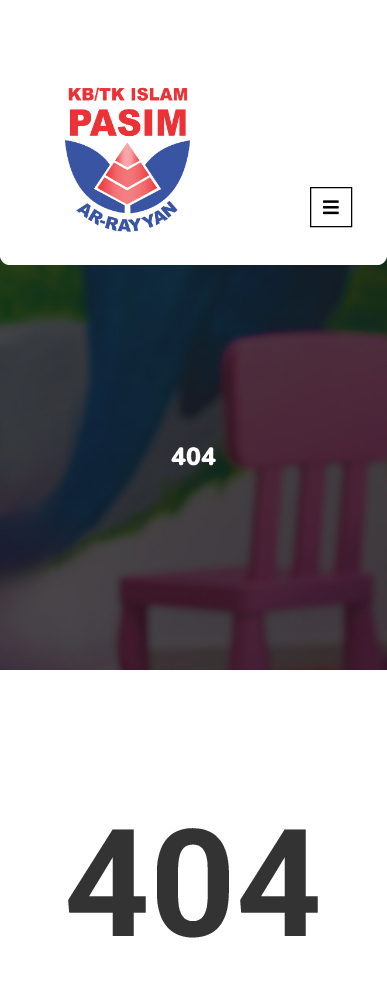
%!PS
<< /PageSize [387 991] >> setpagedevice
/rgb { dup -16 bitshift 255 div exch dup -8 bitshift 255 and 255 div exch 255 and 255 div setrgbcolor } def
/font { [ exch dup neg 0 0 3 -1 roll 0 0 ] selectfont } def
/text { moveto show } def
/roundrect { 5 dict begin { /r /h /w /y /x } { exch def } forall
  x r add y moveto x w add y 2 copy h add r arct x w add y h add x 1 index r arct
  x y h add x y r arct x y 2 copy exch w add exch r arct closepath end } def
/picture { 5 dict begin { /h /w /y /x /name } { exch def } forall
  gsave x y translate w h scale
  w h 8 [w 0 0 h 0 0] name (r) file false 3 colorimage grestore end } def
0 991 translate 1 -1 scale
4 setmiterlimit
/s1 { /Nunito-Black 25 font 16#FFFFFF rgb } def
/s2 { /Roboto-Bold 150 font 16#333333 rgb } def
16#FFFFFF rgb
0 0 387 991 rectfill
(pic3.raw) 0 255 387 415 picture
0 30 387 235 10 roundrect fill
(pic1.raw) 64 87 127 146 picture
16#000000 rgb
310.5 187.5 41 39 rectstroke
(pic2.raw) 323 200 16 15 picture
s1
(404) 171 465 text
s2
(404) 64 936 text
showpage
